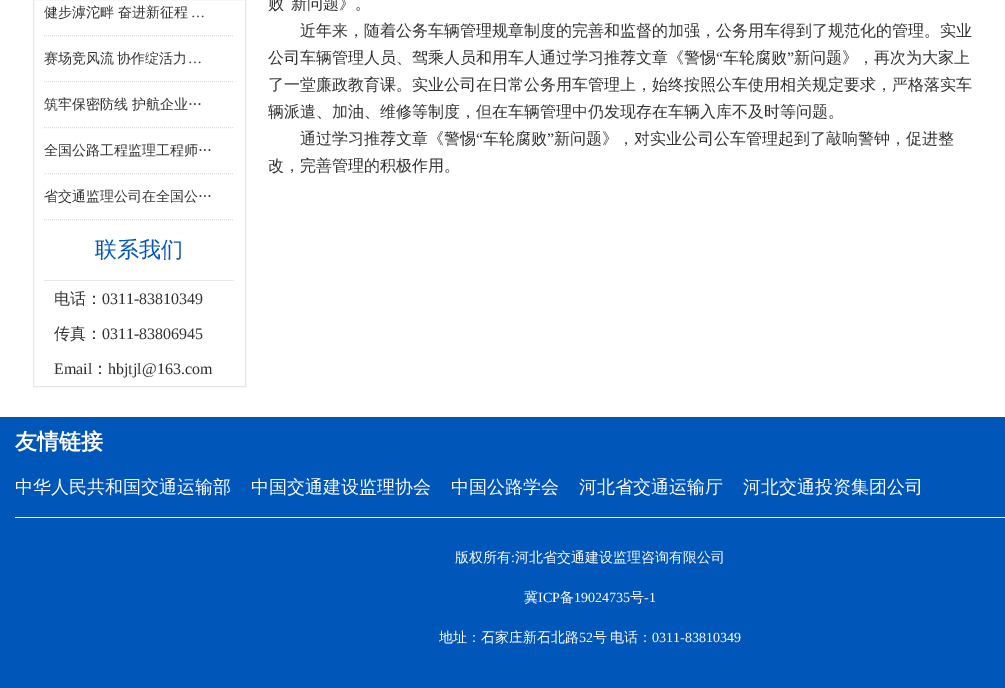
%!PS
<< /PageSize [1005 688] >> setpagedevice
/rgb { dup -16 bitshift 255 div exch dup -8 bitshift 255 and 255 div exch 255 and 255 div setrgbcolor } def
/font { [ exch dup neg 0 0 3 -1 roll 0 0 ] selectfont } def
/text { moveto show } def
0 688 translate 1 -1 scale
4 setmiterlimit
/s1 { /WenQuanYiZenHei-Medium 14 font 16#333333 rgb } def
/s2 { /LiberationSerif-Regular 14 font 16#333333 rgb } def
/s3 { /WenQuanYiZenHei-Medium 22 font 16#0056B9 rgb } def
/s4 { /WenQuanYiZenHei-Medium 16 font 16#333333 rgb } def
/s5 { /LiberationSerif-Regular 16 font 16#333333 rgb } def
/s6 { /WenQuanYiZenHei-Bold 22 font 16#FFFFFF rgb } def
/s7 { /WenQuanYiZenHei-Medium 18 font 16#FFFFFF rgb } def
/s8 { /WenQuanYiZenHei-Medium 14 font 16#FFFFFF rgb } def
/s9 { /LiberationSerif-Regular 14 font 16#FFFFFF rgb } def
16#FFFFFF rgb
0 0 1005 688 rectfill
16#E6E6E6 rgb
33.5 -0.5 212 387 rectstroke
16#DDDDDD rgb
[1 1] 0 setdash
44 35.5 moveto 234 35.5 lineto stroke
s1
(健步滹沱畔 奋进新征程) 44 17 text
s2
(…) 191 17 text
16#DDDDDD rgb
44 81.5 moveto 234 81.5 lineto stroke
/WenQuanYiZenHei-Medium 14 font
16#333333 rgb
44 63 moveto -1 0 32 (赛场竞风流 协作绽活力) widthshow
s2
(…) 188 63 text
16#DDDDDD rgb
44 127.5 moveto 234 127.5 lineto stroke
s1
(筑牢保密防线) 44 109 text
(护航企业…) 132 109 text
16#DDDDDD rgb
44 173.5 moveto 234 173.5 lineto stroke
s1
(全国公路工程监理工程师…) 44 155 text
16#DDDDDD rgb
44 219.5 moveto 234 219.5 lineto stroke
s1
(省交通监理公司在全国公…) 44 201 text
16#E6E6E6 rgb
44 280 190 1 rectfill
s3
(联系我们) 95 257 text
s4
(电话：) 54 304 text
s5
(0311-83810349) 102 304 text
s4
(传真：) 54 339 text
s5
(0311-83806945) 102 339 text
(Email) 54 374 text
s4
(：) 92 374 text
s5
(hbjtjl@163.com) 108 374 text
s4
(败) 268 9 text
(新问题》。) 291 9 text
(近年来，随着公务车辆管理规章制度的完善和监督的加强，公务用车得到了规范化的管理。实业) 300 36 text
(公司车辆管理人员、驾乘人员和用车人通过学习推荐文章《警惕) 268 63 text
s5
(“) 716 63 text
s4
(车轮腐败) 723 63 text
s5
(”) 787 63 text
s4
(新问题》，再次为大家上) 794 63 text
(了一堂廉政教育课。实业公司在日常公务用车管理上，始终按照公车使用相关规定要求，严格落实车) 268 90 text
(辆派遣、加油、维修等制度，但在车辆管理中仍发现存在车辆入库不及时等问题。) 268 117 text
(通过学习推荐文章《警惕) 300 144 text
s5
(“) 476 144 text
s4
(车轮腐败) 483 144 text
s5
(”) 547 144 text
s4
(新问题》，对实业公司公车管理起到了敲响警钟，促进整) 554 144 text
(改，完善管理的积极作用。) 268 171 text
16#0056B9 rgb
0 417 1005 271 rectfill
16#FFFFFF rgb
15 517 990 1 rectfill
s6
(友情链接) 15 449 text
s7
(中华人民共和国交通运输部) 15 493 text
(中国交通建设监理协会) 251 493 text
(中国公路学会) 451 493 text
(河北省交通运输厅) 579 493 text
(河北交通投资集团公司) 743 493 text
s8
(版权所有) 455 562 text
s9
(:) 511 562 text
s8
(河北省交通建设监理咨询有限公司) 515 562 text
(冀) 524 602 text
s9
(ICP) 538 602 text
s8
(备) 560 602 text
s9
(19024735) 574 602 text
s8
(号) 630 602 text
s9
(-1) 644 602 text
s8
(地址：石家庄新石北路) 439 642 text
s9
(52) 579 642 text
/WenQuanYiZenHei-Medium 14 font
593 642 moveto -1 0 32 (号 电话：) widthshow
s9
(0311-83810349) 652 642 text
showpage
